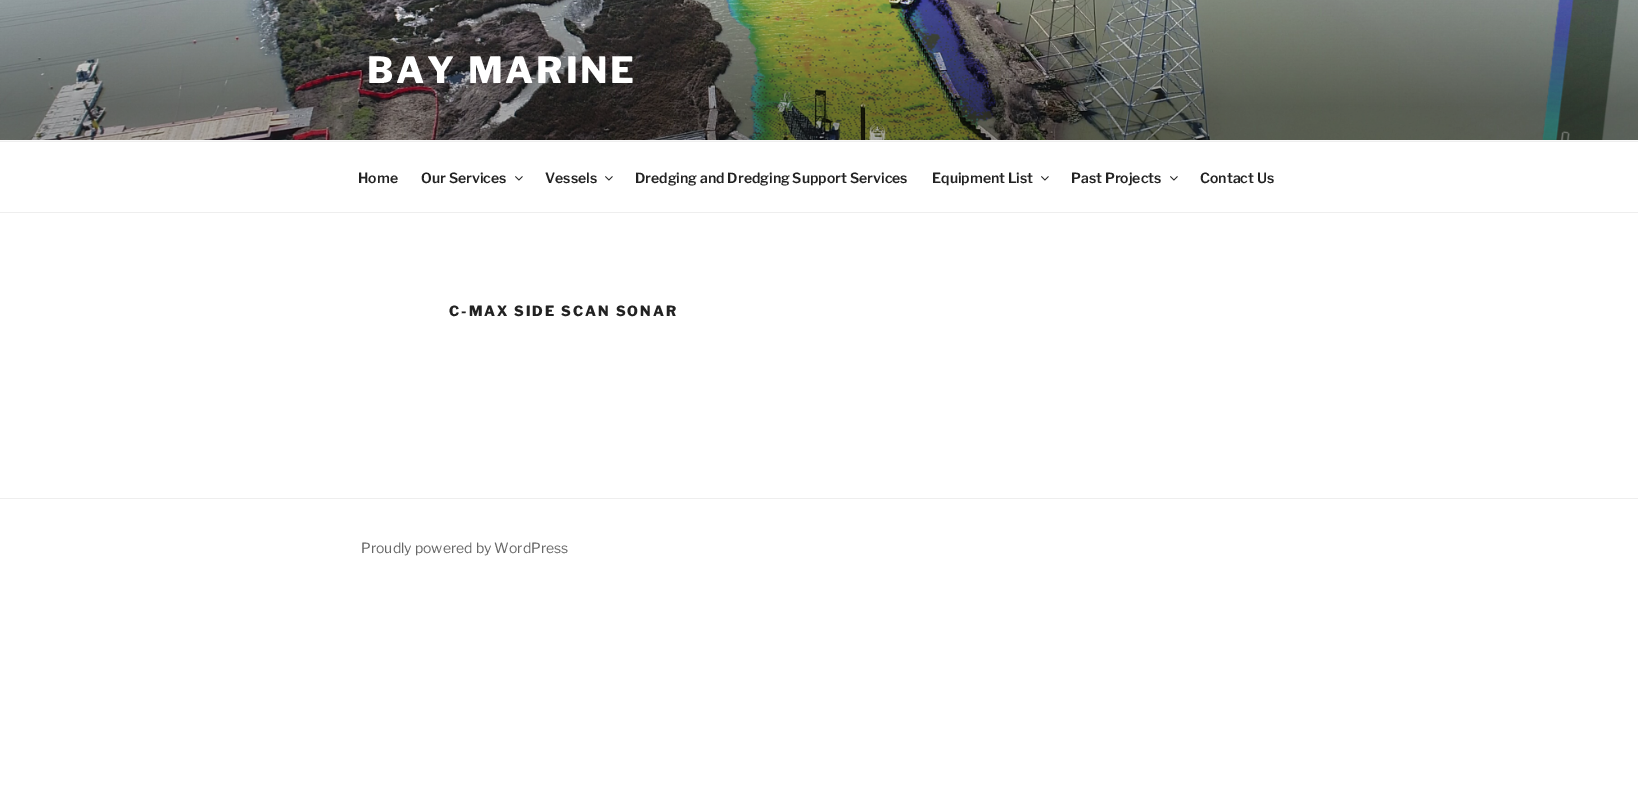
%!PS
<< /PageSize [1638 807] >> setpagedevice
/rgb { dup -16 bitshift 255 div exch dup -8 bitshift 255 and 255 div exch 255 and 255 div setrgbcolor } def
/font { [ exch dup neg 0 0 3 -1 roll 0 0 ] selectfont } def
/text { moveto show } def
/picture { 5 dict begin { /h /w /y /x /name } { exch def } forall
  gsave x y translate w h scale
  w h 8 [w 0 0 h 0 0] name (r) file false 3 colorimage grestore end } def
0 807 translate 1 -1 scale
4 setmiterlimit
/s1 { /LibreFranklin-SemiBold 14 font 16#222222 rgb } def
/s2 { /LibreFranklin-Regular 14 font 16#666666 rgb } def
16#FFFFFF rgb
0 0 1638 807 rectfill
16#FAFAFA rgb
0 140 1638 1 rectfill
(pic1.raw) 0 0 1638 140 picture
/LibreFranklin-ExtraBold 36 font
16#FFFFFF rgb
367 83 moveto 2.9 0 (BAY MARINE) ashow
16#EEEEEE rgb
0 141 1638 1 rectfill
0 212 1638 1 rectfill
s1
(Home) 358 183 text
(Our Services) 421 183 text
(pic2.raw) 515 176 8 5 picture
(Vessels) 545 183 text
(pic2.raw) 605 176 8 5 picture
(Dredging and Dredging Support Services) 635 183 text
(Equipment List) 932 183 text
(pic2.raw) 1041 176 8 5 picture
(Past Projects) 1071 183 text
(pic2.raw) 1170 176 8 5 picture
(Contact Us) 1200 183 text
/LibreFranklin-ExtraBold 14 font
449 316 moveto 2 0 (C-MAX SIDE SCAN SONAR) ashow
16#EEEEEE rgb
0 498 1638 1 rectfill
s2
(Proudly powered by WordPress) 361 553 text
showpage
